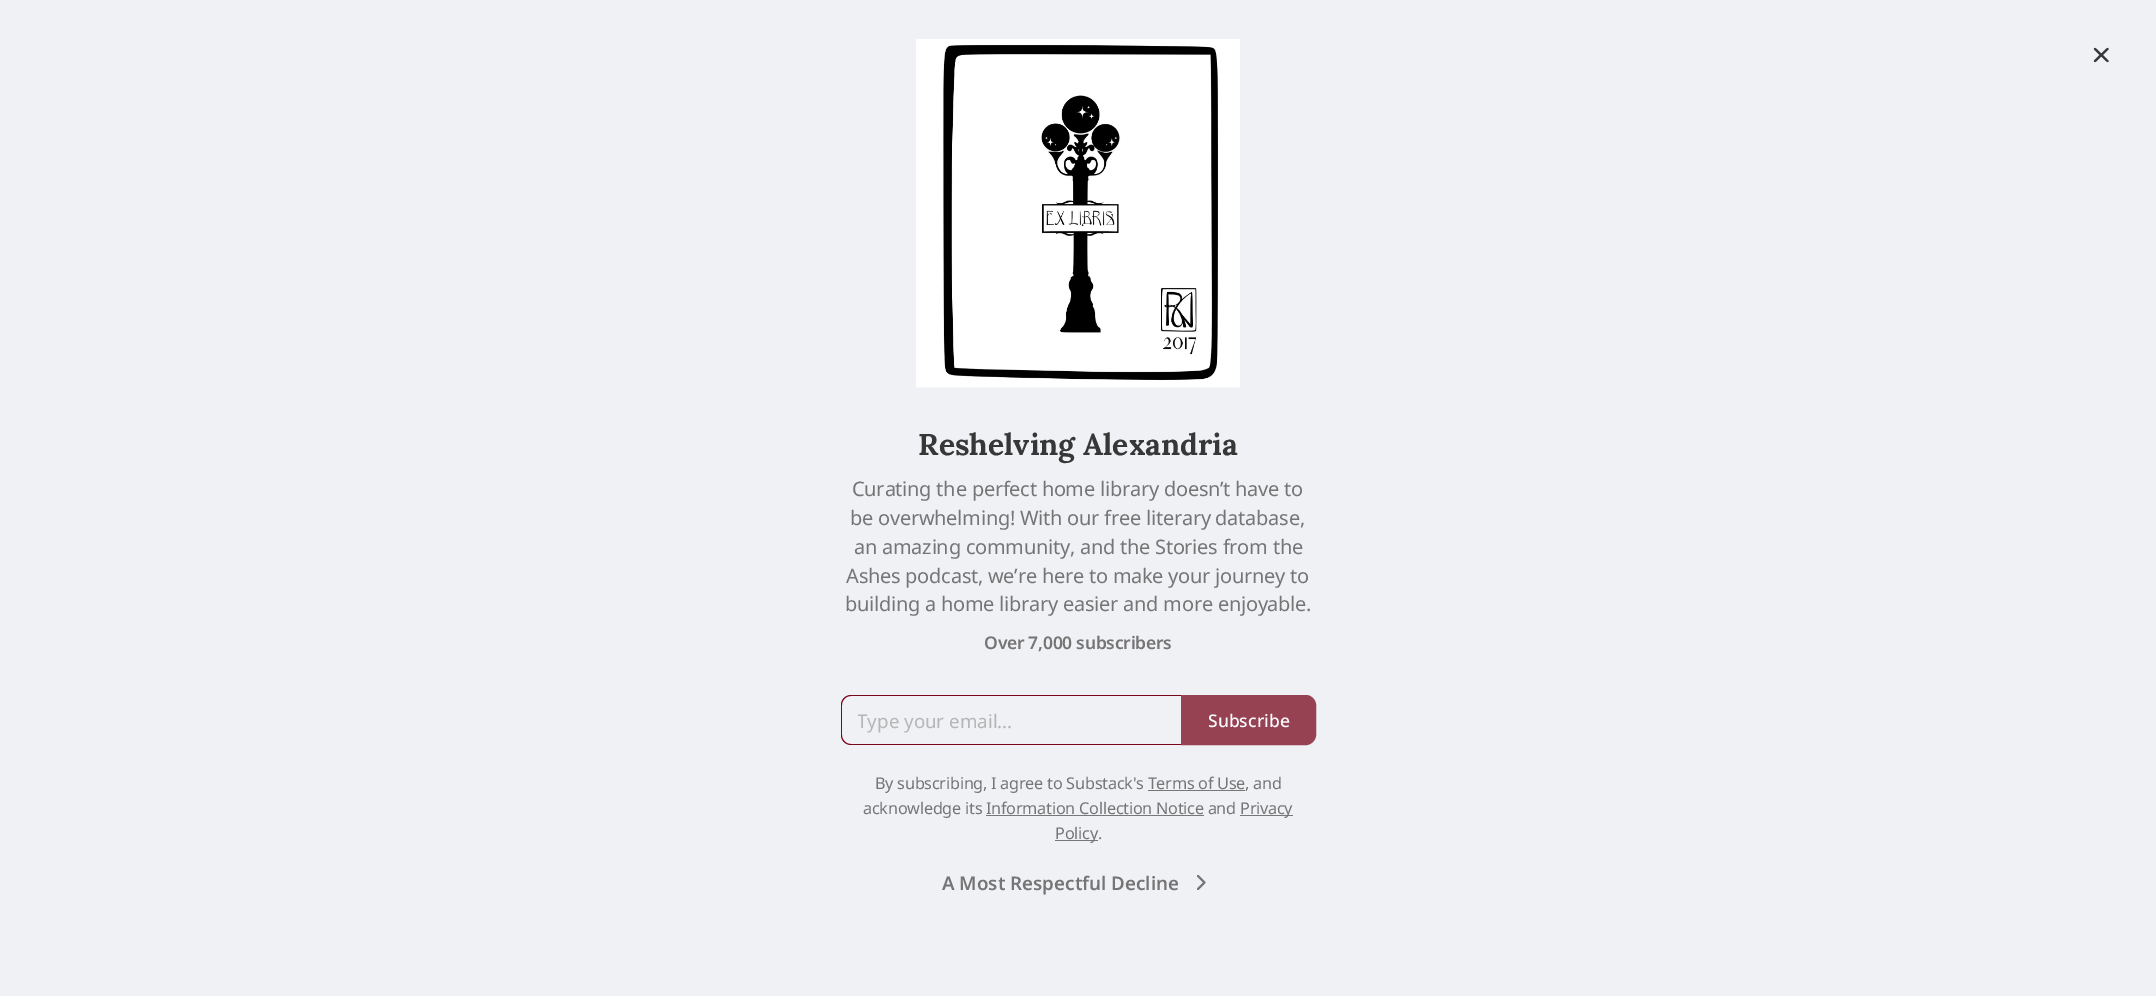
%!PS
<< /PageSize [2156 996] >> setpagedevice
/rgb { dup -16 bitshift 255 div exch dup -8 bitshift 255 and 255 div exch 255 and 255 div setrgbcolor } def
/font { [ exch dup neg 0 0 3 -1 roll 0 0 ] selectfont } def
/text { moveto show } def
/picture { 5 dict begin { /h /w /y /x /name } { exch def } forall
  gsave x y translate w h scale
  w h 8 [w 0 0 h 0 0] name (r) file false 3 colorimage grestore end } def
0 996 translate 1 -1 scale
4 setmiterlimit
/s1 { /Lora-Bold 30 font 16#363737 rgb } def
/s2 { /NotoSans-Regular 18.75 font 16#B6B6B6 rgb } def
/s3 { /NotoSans-Medium 17.5 font 16#FBFCFD rgb } def
/s4 { /NotoSans-SemiBold 18.75 font 16#757575 rgb } def
16#F0F1F5 rgb
0 0 2156 996 rectfill
(pic1.raw) 916 39 324 349 picture
16#363737 rgb
2.1 setlinewidth
1 setlinecap
1 setlinejoin
2107.5 49 moveto 2095 61 lineto 2095 49 moveto 2107.5 61 lineto stroke
s1
(Reshelving Alexandria) 918 455 text
/NotoSans-Regular 20 font
16#757575 rgb
852 496 moveto -0.25 0 (Curating the perfect home library doesn’t have to) ashow
850 525 moveto -0.25 0 (be overwhelming! With our free literary database,) ashow
854 554 moveto -0.25 0 (an amazing community, and the Stories from the) ashow
846 583 moveto -0.25 0 (Ashes podcast, we’re here to make your journey to) ashow
845 611 moveto -0.25 0 (building a home library easier and more enjoyable.) ashow
/NotoSans-SemiBold 17.5 font
984 649 moveto -0.25 0 (Over 7,000 subscribers) ashow
16#78071C rgb
851 695 moveto 1181 695 lineto 1181 745 lineto 851 745 lineto 846 745 841 741 841 735 curveto 841 705 lineto 841 699 846 695 851 695 curveto closepath 851 696 moveto 1181 696 lineto 1181 744 lineto 851 744 lineto 846 744 842 740 842 735 curveto 842 705 lineto 842 700 846 696 851 696 curveto closepath eofill
gsave
858 708 308 25 rectclip
s2
(Type your email...) 857 728 text
grestore
16#964252 rgb
1181.5 695.5 moveto 1306 695.5 lineto 1311 695.5 1315.5 700 1315.5 705 curveto 1315.5 735 lineto 1315.5 740 1311 744.5 1306 744.5 curveto 1181.5 744.5 lineto closepath gsave fill grestore
1 setlinewidth
0 setlinecap
0 setlinejoin
stroke
s3
(Subscribe) 1208 727 text
/NotoSans-Regular 16.25 font
16#757575 rgb
875 789 moveto -0.25 0 (By subscribing, I agree to Substack's Terms of Use, and) ashow
16#777777 rgb
1148 790 97 1 rectfill
16#757575 rgb
863 814 moveto -0.25 0 (acknowledge its Information Collection Notice and) ashow
16#777777 rgb
1240 815 53 1 rectfill
16#757575 rgb
1240 814 moveto -0.25 0 (Privacy) ashow
16#777777 rgb
986 815 218 1 rectfill
1055 840 43 1 rectfill
16#757575 rgb
1055 839 moveto -0.25 0 (Policy.) ashow
s4
(A Most Respectful Decline) 942 890 text
2.1 setlinewidth
1 setlinecap
1 setlinejoin
1198 889 moveto 1204.5 882.5 lineto 1198 876 lineto stroke
showpage
